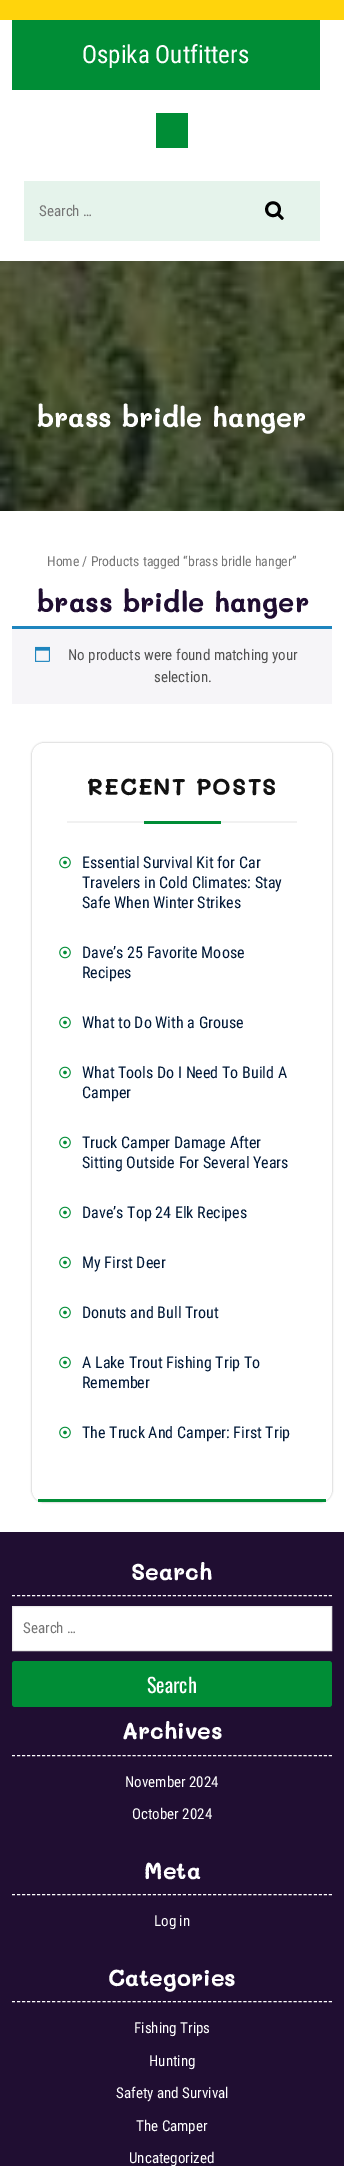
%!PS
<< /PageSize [344 2166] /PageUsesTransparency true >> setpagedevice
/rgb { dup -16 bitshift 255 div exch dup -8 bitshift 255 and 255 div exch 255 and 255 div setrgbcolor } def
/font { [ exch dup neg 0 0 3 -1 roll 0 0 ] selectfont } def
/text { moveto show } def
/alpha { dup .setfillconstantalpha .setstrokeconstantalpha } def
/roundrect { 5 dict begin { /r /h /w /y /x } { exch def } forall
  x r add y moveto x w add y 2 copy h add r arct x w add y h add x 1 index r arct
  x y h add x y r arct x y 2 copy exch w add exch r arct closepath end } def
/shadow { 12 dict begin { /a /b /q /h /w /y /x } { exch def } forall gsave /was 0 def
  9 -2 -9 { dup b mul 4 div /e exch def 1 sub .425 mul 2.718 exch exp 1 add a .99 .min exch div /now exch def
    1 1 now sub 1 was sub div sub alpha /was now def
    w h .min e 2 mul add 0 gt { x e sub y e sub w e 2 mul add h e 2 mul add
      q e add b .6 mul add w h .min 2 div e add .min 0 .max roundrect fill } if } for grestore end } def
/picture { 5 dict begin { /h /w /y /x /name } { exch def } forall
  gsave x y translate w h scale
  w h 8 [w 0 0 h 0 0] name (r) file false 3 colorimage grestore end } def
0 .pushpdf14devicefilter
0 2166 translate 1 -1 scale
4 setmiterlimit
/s1 { /RobotoCondensed-Regular 25 font 16#FFFFFF rgb } def
/s2 { /RobotoCondensed-Regular 15 font 16#767676 rgb } def
/s3 { /Mali-Bold 27 font 16#FFFFFF rgb } def
/s4 { /RobotoCondensed-Regular 13.75 font 16#767676 rgb } def
/s5 { /Mali-Bold 27.25 font 16#200E32 rgb } def
/s6 { /RobotoCondensed-Regular 15 font 16#515151 rgb } def
/s7 { /RobotoCondensed-Regular 16 font 16#001837 rgb } def
/s8 { /Mali-Bold 23 font 16#FFFFFF rgb } def
/s9 { /Oswald-Regular 20 font 16#FFFFFF rgb } def
/s10 { /RobotoCondensed-Regular 15 font 16#FFFFFF rgb } def
16#FFFFFF rgb
0 0 344 2166 rectfill
16#FFD40C rgb
0 0 344 20 rectfill
16#008D36 rgb
12 20 308 70 rectfill
s1
(Ospika Outfitters) 82 63 text
16#008D36 rgb
156 113 32 35 rectfill
16#E5F3EB rgb
24 181 296 60 rectfill
s2
(Search …) 39 216 text
(pic1.raw) 265 201 19 19 picture
16#000000 rgb
0 261 344 250 rectfill
(pic2.raw) 0 261 344 250 picture
s3
(brass bridle hanger) 37 427 text
s4
(Home / Products tagged “brass bridle hanger”) 47 566 text
s5
(brass bridle hanger) 37 612 text
16#F6F5F8 rgb
12 629 320 75 rectfill
16#1E85BE rgb
12 626 320 3 rectfill
(pic3.raw) 35 646 15 16 picture
s6
(No products were found matching your) 68 660 text
(selection.) 154 682 text
16#AAAAAA rgb
32 743 300 759 12 1 1 shadow
16#FFFFFF rgb
32 743 300 759 12 roundrect fill
16#008D36 rgb
38 1499 288 3 rectfill
16#F1F1F1 rgb
67 821 230 2 rectfill
/Mali-Bold 23 font
16#121212 rgb
87 795 moveto 1 0 (RECENT POSTS) ashow
16#008D36 rgb
144 821 77 3 rectfill
(pic4.raw) 59 856 12 13 picture
s7
(Essential Survival Kit for Car) 82 868 text
(Travelers in Cold Climates: Stay) 82 888 text
(Safe When Winter Strikes) 82 908 text
(pic4.raw) 59 946 12 13 picture
(Dave’s 25 Favorite Moose) 82 958 text
(Recipes) 82 978 text
(pic4.raw) 59 1016 12 13 picture
(What to Do With a Grouse) 82 1028 text
(pic4.raw) 59 1066 12 13 picture
(What Tools Do I Need To Build A) 82 1078 text
(Camper) 82 1098 text
(pic4.raw) 59 1136 12 13 picture
(Truck Camper Damage After) 82 1148 text
(Sitting Outside For Several Years) 82 1168 text
(pic4.raw) 59 1206 12 13 picture
(Dave’s Top 24 Elk Recipes) 82 1218 text
(pic4.raw) 59 1256 12 13 picture
(My First Deer) 82 1268 text
(pic4.raw) 59 1306 12 13 picture
(Donuts and Bull Trout) 82 1318 text
(pic4.raw) 59 1356 12 13 picture
(A Lake Trout Fishing Trip To) 82 1368 text
(Remember) 82 1388 text
(pic4.raw) 59 1426 12 13 picture
(The Truck And Camper: First Trip) 82 1438 text
16#200E32 rgb
0 1532 344 634 rectfill
16#FFFFFF rgb
[3 2.03] 0 setdash
12 1595.5 moveto 332 1595.5 lineto stroke
s8
(Search) 131 1580 text
12.5 1606.5 moveto 331.5 1606.5 lineto 331.5 1650.5 lineto 12.5 1650.5 lineto closepath gsave fill grestore
16#EBEBEB rgb
[] 0 setdash
stroke
s2
(Search …) 23 1633 text
16#008D36 rgb
12 1661 320 46 3 roundrect fill
s9
(Search) 147 1693 text
[3 2.03] 0 setdash
12 1755.5 moveto 332 1755.5 lineto stroke
s8
(Archives) 122 1739 text
s10
(November 2024) 125 1787 text
(October 2024) 132 1819 text
12 1894.5 moveto 332 1894.5 lineto stroke
s8
(Meta) 144 1879 text
s10
(Log in) 154 1926 text
12 2001.5 moveto 332 2001.5 lineto stroke
s8
(Categories) 108 1986 text
s10
(Fishing Trips) 134 2033 text
(Hunting) 149 2066 text
(Safety and Survival) 116 2098 text
(The Camper) 136 2131 text
(Uncategorized) 129 2163 text
.poppdf14devicefilter showpage
